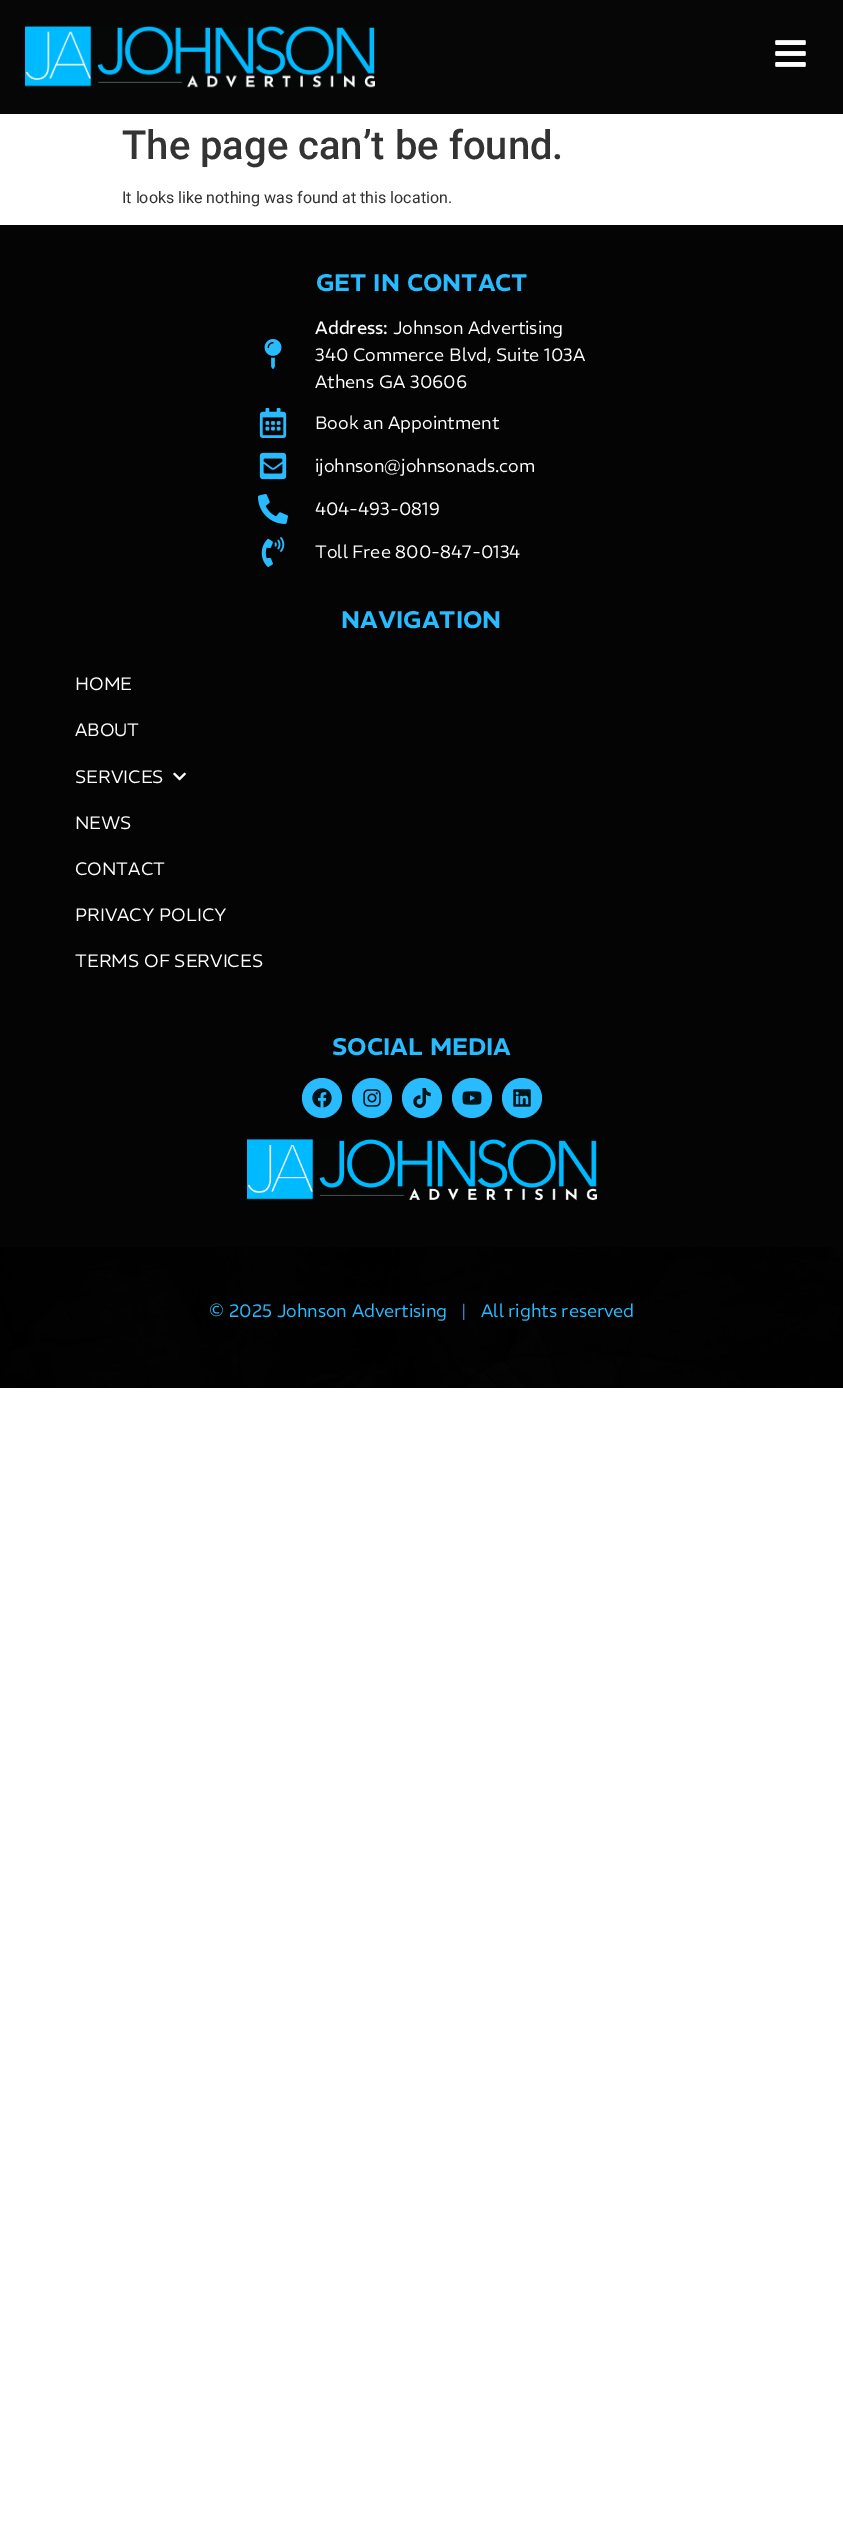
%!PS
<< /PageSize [843 2542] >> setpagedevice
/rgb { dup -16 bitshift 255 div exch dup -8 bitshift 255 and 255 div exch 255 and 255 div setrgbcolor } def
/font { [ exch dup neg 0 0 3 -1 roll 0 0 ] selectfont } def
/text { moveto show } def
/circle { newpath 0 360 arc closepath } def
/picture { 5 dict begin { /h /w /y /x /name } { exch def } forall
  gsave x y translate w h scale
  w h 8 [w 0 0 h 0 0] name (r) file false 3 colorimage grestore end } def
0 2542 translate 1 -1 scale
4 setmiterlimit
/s1 { /Roboto-Medium 40 font 16#333333 rgb } def
/s2 { /Roboto-Regular 16 font 16#333333 rgb } def
/s3 { /REM-SemiBold 24 font 16#29BBFF rgb } def
/s4 { /REM-Regular 18 font 16#FFFFFF rgb } def
/s5 { /REM-Light 18 font 16#FFFFFF rgb } def
/s6 { /REM-Light 18 font 16#29BBFF rgb } def
16#FFFFFF rgb
0 0 843 2542 rectfill
16#060606 rgb
0 0 843 114 rectfill
(pic1.raw) 25 26 350 62 picture
(pic2.raw) 775 40 31 27 picture
s1
(The page can’t be found.) 122 159 text
s2
(It looks like nothing was found at this location.) 122 203 text
16#040404 rgb
0 225 843 1022 rectfill
s3
(GET IN CONTACT) 316 291 text
(pic3.raw) 264 339 18 30 picture
s4
(Address:) 315 334 text
s5
(Johnson Advertising) 393 334 text
(340 Commerce Blvd, Suite 103A) 315 361 text
(Athens GA 30606) 315 388 text
(pic4.raw) 259 408 28 30 picture
(Book an Appointment) 315 429 text
(pic5.raw) 259 452 28 28 picture
(ijohnson@johnsonads.com) 315 472 text
(pic6.raw) 258 494 30 30 picture
(404-493-0819) 315 515 text
(pic7.raw) 261 537 24 30 picture
(Toll Free 800-847-0134) 315 558 text
s3
(NAVIGATION) 341 628 text
s5
(HOME) 75 690 text
(ABOUT) 75 736 text
(SERVICES) 75 783 text
(pic8.raw) 173 772 13 9 picture
(NEWS) 75 829 text
(CONTACT) 75 875 text
(PRIVACY POLICY) 75 921 text
(TERMS OF SERVICES) 75 967 text
s3
(SOCIAL MEDIA) 332 1055 text
322 1098 20 circle fill
(pic9.raw) 312 1088 20 20 picture
372 1098 20 circle fill
(pic10.raw) 363 1089 18 18 picture
422 1098 20 circle fill
(pic11.raw) 413 1088 18 20 picture
472 1098 20 circle fill
(pic12.raw) 462 1091 20 14 picture
522 1098 20 circle fill
(pic13.raw) 513 1089 18 18 picture
(pic14.raw) 247 1139 350 62 picture
(pic15.raw) 0 1247 843 141 picture
s6
(© 2025 Johnson Advertising   |   All rights reserved) 209 1317 text
showpage
